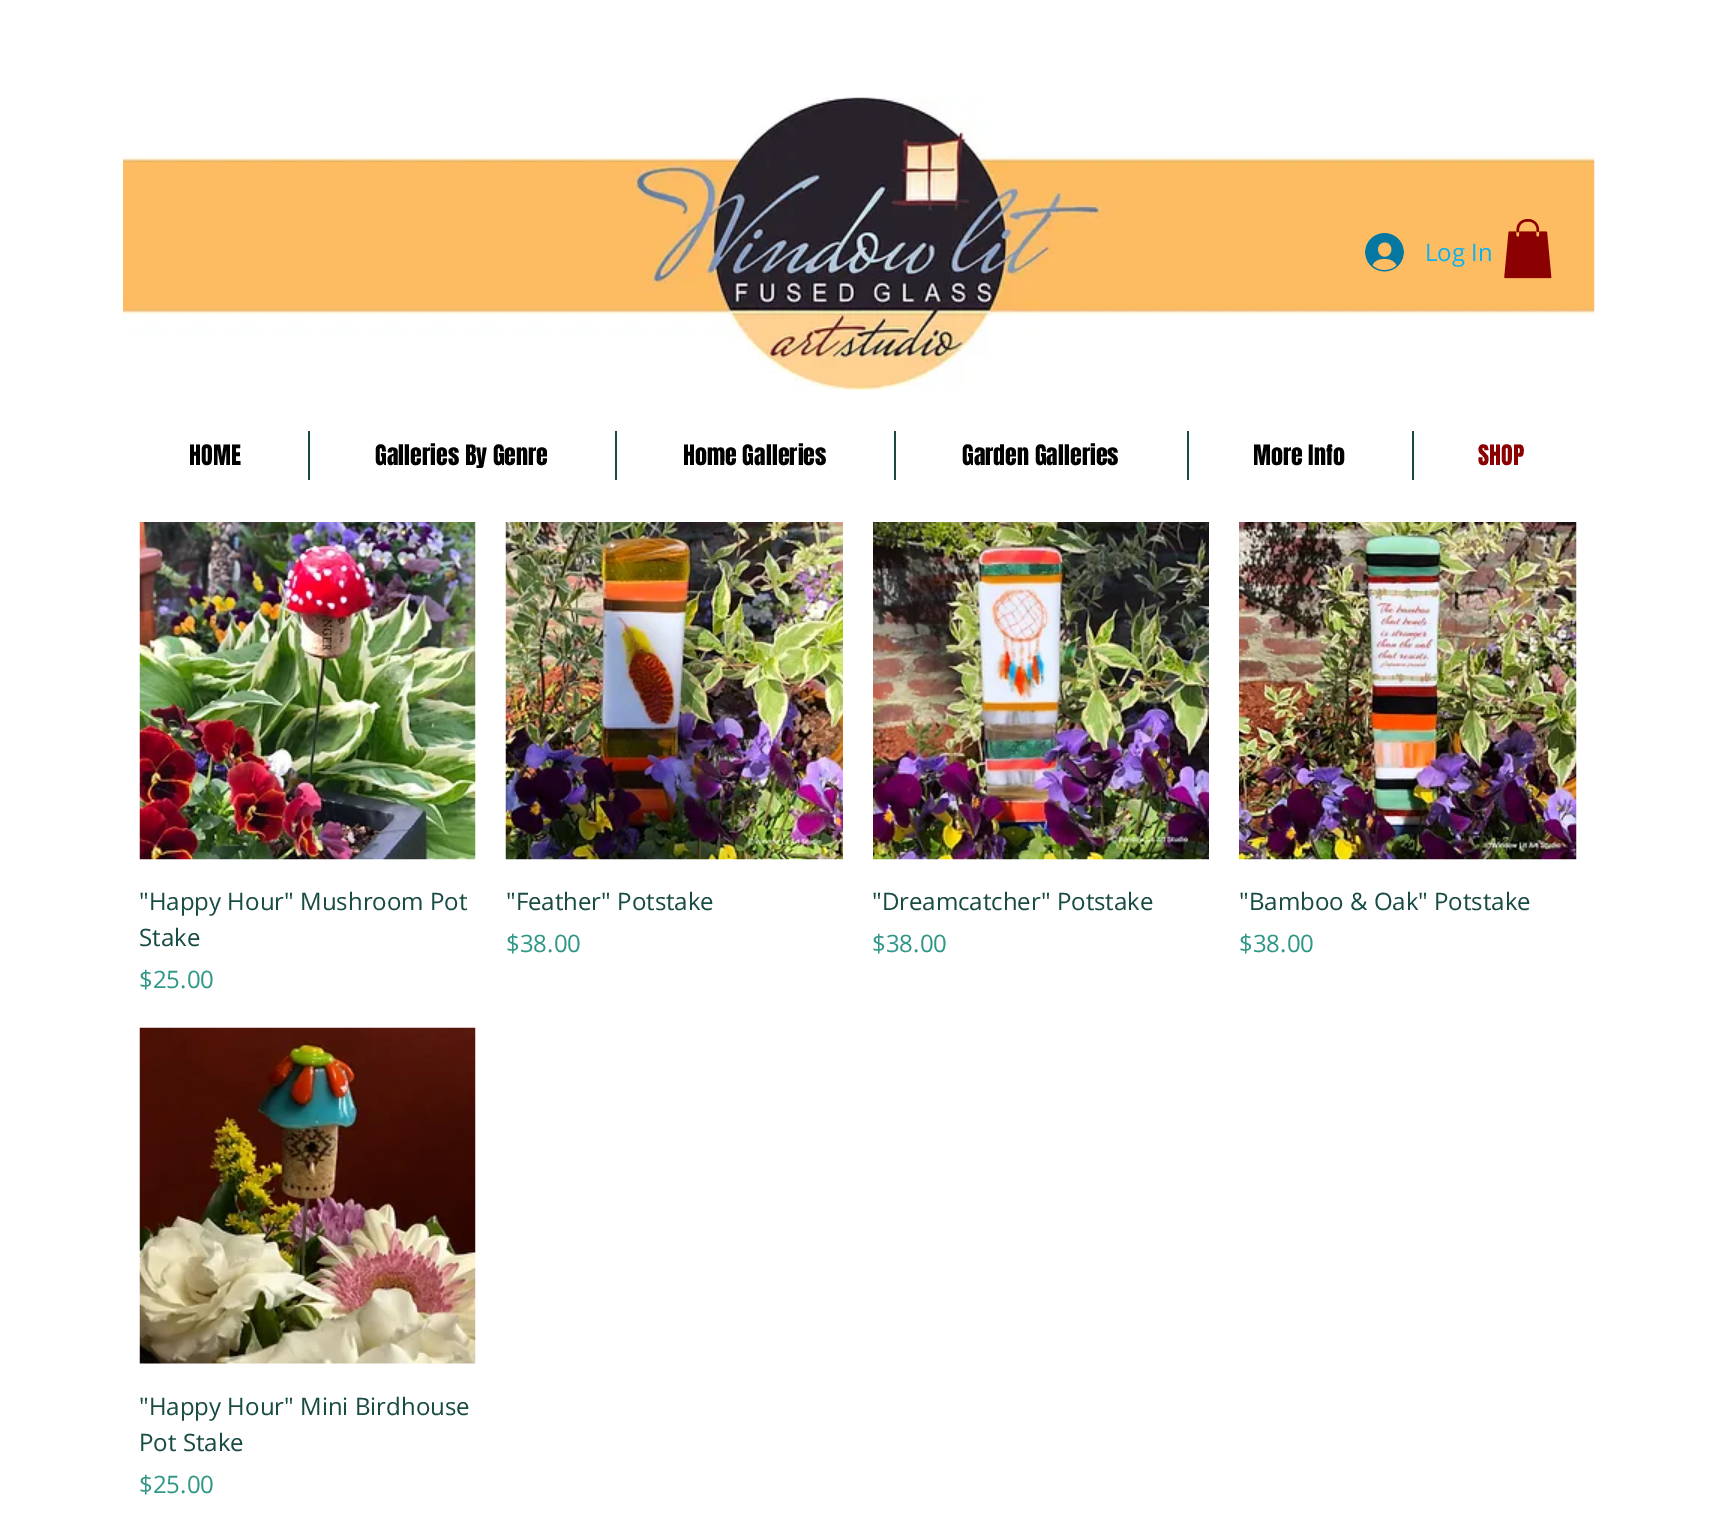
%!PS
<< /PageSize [1714 1534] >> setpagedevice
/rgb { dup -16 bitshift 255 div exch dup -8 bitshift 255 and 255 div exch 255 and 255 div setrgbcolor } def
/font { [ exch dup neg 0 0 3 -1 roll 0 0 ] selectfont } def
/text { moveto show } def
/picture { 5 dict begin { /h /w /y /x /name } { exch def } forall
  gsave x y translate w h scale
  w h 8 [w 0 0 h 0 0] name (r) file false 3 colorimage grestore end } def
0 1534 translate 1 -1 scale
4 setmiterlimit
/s1 { /OpenSans-Regular 24 font 16#0AB2F0 rgb } def
/s2 { /Anton-Regular 24 font 16#000000 rgb } def
/s3 { /Anton-Regular 24 font 16#8B0000 rgb } def
/s4 { /OpenSans-Regular 24 font 16#184B43 rgb } def
/s5 { /OpenSans-Regular 24 font 16#309786 rgb } def
16#FFFFFF rgb
0 0 1714 1534 rectfill
(pic1.raw) 123 97 1472 293 picture
(pic2.raw) 1365 233 39 39 picture
s1
(Log In) 1425 261 text
(pic3.raw) 1504 219 48 60 picture
s2
(HOME) 189 465 text
16#184B43 rgb
308 431 2 49 rectfill
s2
(Galleries By Genre) 375 465 text
16#184B43 rgb
615 431 2 49 rectfill
s2
(Home Galleries) 683 465 text
16#184B43 rgb
894 431 2 49 rectfill
s2
(Garden Galleries) 962 465 text
16#184B43 rgb
1187 431 2 49 rectfill
s2
(More Info) 1253 465 text
16#184B43 rgb
1412 431 2 49 rectfill
s3
(SHOP) 1478 465 text
(pic4.raw) 139 522 337 338 picture
s4
("Happy Hour" Mushroom Pot) 139 910 text
(Stake) 139 946 text
s5
($25.00) 139 988 text
(pic5.raw) 505 522 338 338 picture
s4
("Feather" Potstake) 506 910 text
s5
($38.00) 506 952 text
(pic6.raw) 873 522 336 338 picture
s4
("Dreamcatcher" Potstake) 872 910 text
s5
($38.00) 872 952 text
(pic7.raw) 1239 522 338 338 picture
s4
("Bamboo & Oak" Potstake) 1239 910 text
s5
($38.00) 1239 952 text
(pic8.raw) 139 1027 337 337 picture
s4
("Happy Hour" Mini Birdhouse) 139 1415 text
(Pot Stake) 139 1451 text
s5
($25.00) 139 1493 text
showpage
